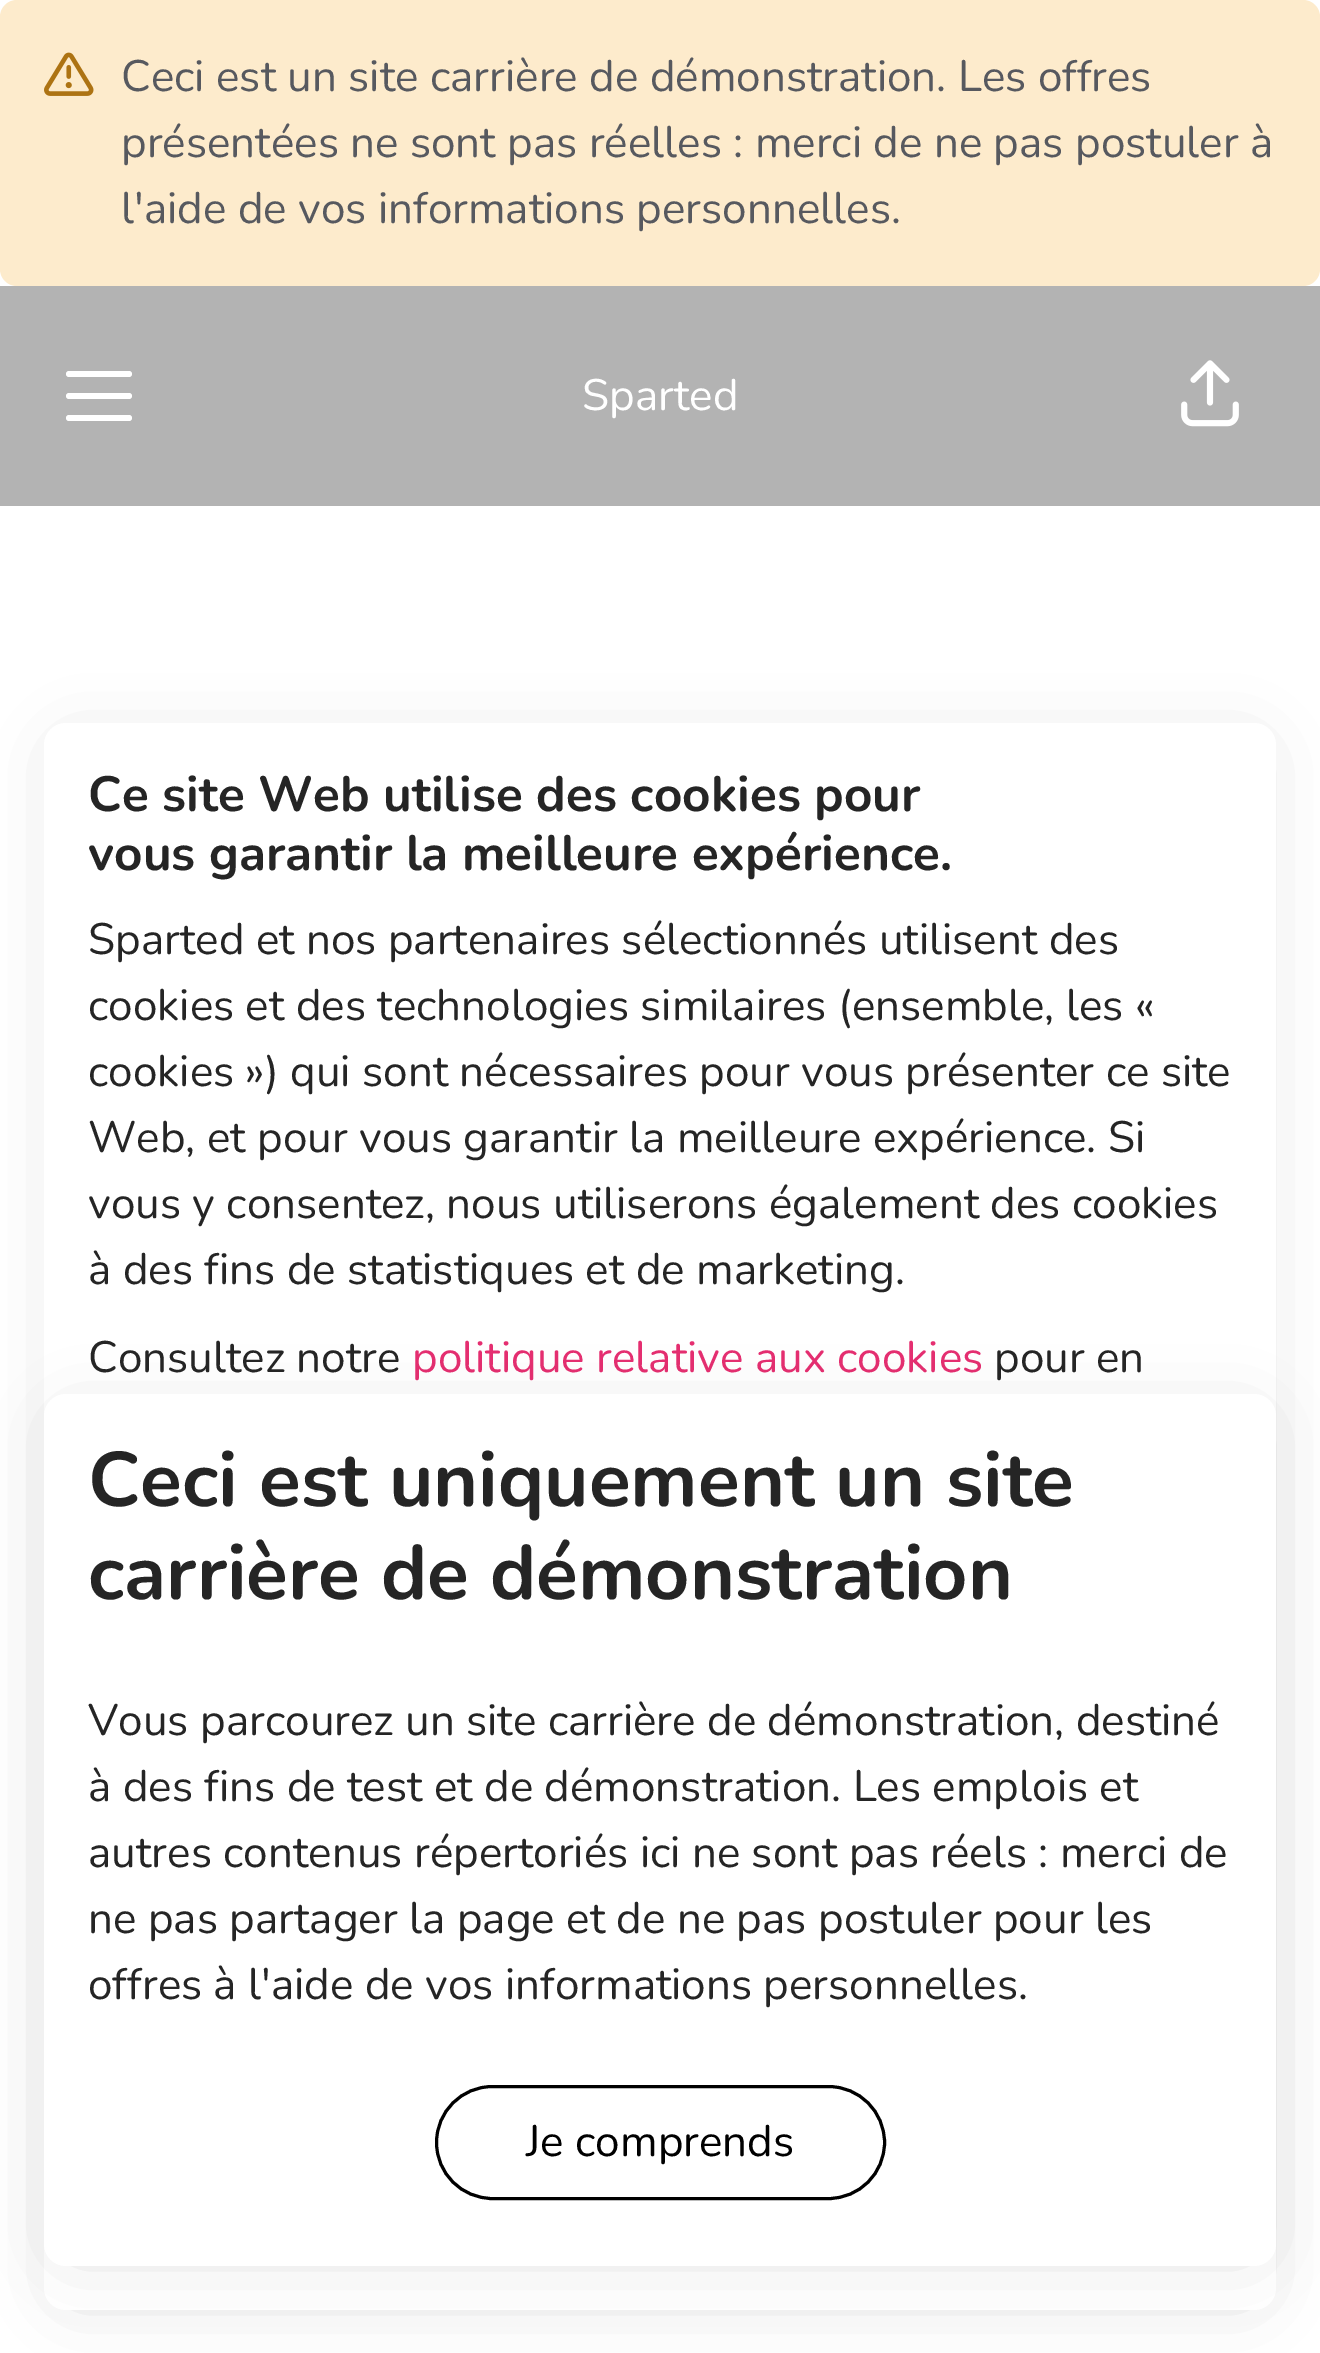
%!PS
<< /PageSize [1320 2353] /PageUsesTransparency true >> setpagedevice
/rgb { dup -16 bitshift 255 div exch dup -8 bitshift 255 and 255 div exch 255 and 255 div setrgbcolor } def
/font { [ exch dup neg 0 0 3 -1 roll 0 0 ] selectfont } def
/text { moveto show } def
/alpha { dup .setfillconstantalpha .setstrokeconstantalpha } def
/roundrect { 5 dict begin { /r /h /w /y /x } { exch def } forall
  x r add y moveto x w add y 2 copy h add r arct x w add y h add x 1 index r arct
  x y h add x y r arct x y 2 copy exch w add exch r arct closepath end } def
/shadow { 12 dict begin { /a /b /q /h /w /y /x } { exch def } forall gsave /was 0 def
  9 -2 -9 { dup b mul 4 div /e exch def 1 sub .425 mul 2.718 exch exp 1 add a .99 .min exch div /now exch def
    1 1 now sub 1 was sub div sub alpha /was now def
    w h .min e 2 mul add 0 gt { x e sub y e sub w e 2 mul add h e 2 mul add
      q e add b .6 mul add w h .min 2 div e add .min 0 .max roundrect fill } if } for grestore end } def
/picture { 5 dict begin { /h /w /y /x /name } { exch def } forall
  gsave x y translate w h scale
  w h 8 [w 0 0 h 0 0] name (r) file false 3 colorimage grestore end } def
0 .pushpdf14devicefilter
0 2353 translate 1 -1 scale
4 setmiterlimit
/s1 { /Nunito-ExtraLight 44 font 16#57595F rgb } def
/s2 { /Nunito-ExtraLight 44 font 16#FFFFFF rgb } def
/s3 { /Nunito-Bold 49.5 font 16#252525 rgb } def
/s4 { /Nunito-ExtraLight 44 font 16#252525 rgb } def
/s5 { /Nunito-ExtraLight 44 font 16#E52E70 rgb } def
/s6 { /Nunito-Bold 77 font 16#252525 rgb } def
/s7 { /Nunito-ExtraLight 44 font 16#000000 rgb } def
16#FFFFFF rgb
0 0 1320 2353 rectfill
16#FDEBCC rgb
0 0 1320 286 17 roundrect fill
(pic1.raw) 44 52 50 44 picture
s1
(Ceci est un site carrière de démonstration. Les offres) 121 91 text
(présentées ne sont pas réelles : merci de ne pas postuler à) 121 157 text
(l'aide de vos informations personnelles.) 121 223 text
16#B3B3B3 rgb
0 286 1320 220 rectfill
16#FFFFFF rgb
66 371 66 6 3 roundrect fill
66 393 66 6 3 roundrect fill
66 415 66 6 3 roundrect fill
(Sparted) 582 410 text
(pic2.raw) 1181 360 58 67 picture
16#000000 rgb
72 756 1177 1532 0 37 0.18 shadow
16#FFFFFF rgb
44 723 1232 1587 22 roundrect fill
s3
(Ce site Web utilise des cookies pour) 88 811 text
(vous garantir la meilleure expérience.) 88 870 text
s4
(Sparted et nos partenaires sélectionnés utilisent des) 88 954 text
(cookies et des technologies similaires \(ensemble, les «) 88 1020 text
(cookies »\) qui sont nécessaires pour vous présenter ce site) 88 1086 text
(Web, et pour vous garantir la meilleure expérience. Si) 88 1152 text
(vous y consentez, nous utiliserons également des cookies) 88 1218 text
(à des fins de statistiques et de marketing.) 88 1284 text
(Consultez notre) 88 1372 text
s5
(politique relative aux cookies) 412 1372 text
s4
(pour en) 994 1372 text
16#000000 rgb
72 1427 1177 817 0 37 0.18 shadow
16#FFFFFF rgb
44 1394 1232 872 22 roundrect fill
s6
(Ceci est uniquement un site) 88 1506 text
(carrière de démonstration) 88 1599 text
s4
(Vous parcourez un site carrière de démonstration, destiné) 88 1735 text
(à des fins de test et de démonstration. Les emplois et) 88 1801 text
(autres contenus répertoriés ici ne sont pas réels : merci de) 88 1867 text
(ne pas partager la page et de ne pas postuler pour les) 88 1933 text
(offres à l'aide de vos informations personnelles.) 88 1999 text
16#000000 rgb
3 setlinewidth
436.5 2086.5 448 112 56 roundrect stroke
(Je comprends) 526 2156 text
.poppdf14devicefilter showpage
